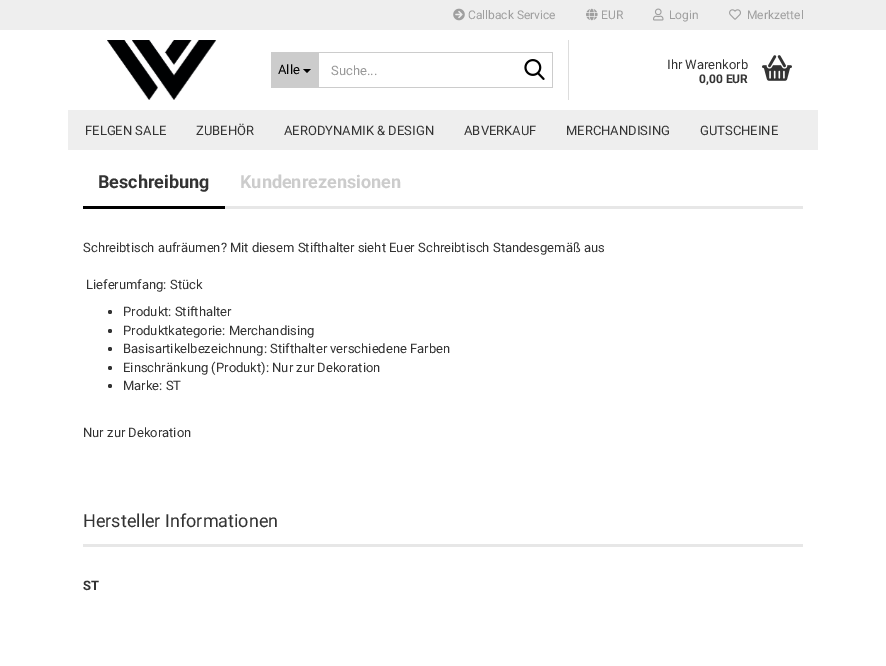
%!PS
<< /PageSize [886 666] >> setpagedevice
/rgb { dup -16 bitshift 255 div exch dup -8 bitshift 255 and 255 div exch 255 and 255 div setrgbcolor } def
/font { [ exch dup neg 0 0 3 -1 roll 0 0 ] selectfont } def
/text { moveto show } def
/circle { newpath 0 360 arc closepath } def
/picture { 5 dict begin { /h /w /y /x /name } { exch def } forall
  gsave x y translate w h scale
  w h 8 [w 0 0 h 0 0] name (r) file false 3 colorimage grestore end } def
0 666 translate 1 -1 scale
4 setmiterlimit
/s1 { /Roboto-Regular 12 font 16#9F9F9F rgb } def
/s2 { /Roboto-Regular 13 font 16#000000 rgb } def
/s3 { /Roboto-Regular 13 font 16#999999 rgb } def
/s4 { /Roboto-Regular 13 font 16#333333 rgb } def
/s5 { /Roboto-Bold 12 font 16#333333 rgb } def
/s6 { /Roboto-Bold 18 font 16#333333 rgb } def
/s7 { /Roboto-Bold 18 font 16#CCCCCC rgb } def
/s8 { /Roboto-Regular 18 font 16#333333 rgb } def
/s9 { /Roboto-Bold 13 font 16#333333 rgb } def
16#FFFFFF rgb
0 0 886 666 rectfill
16#EEEEEE rgb
0 0 886 30 rectfill
(pic1.raw) 453 8 12 13 picture
s1
(Callback Service) 468 19 text
(pic2.raw) 586 8 12 13 picture
(EUR) 601 19 text
(pic3.raw) 653 8 11 13 picture
(Login) 669 19 text
(pic4.raw) 729 9 12 11 picture
(Merkzettel) 747 19 text
(pic5.raw) 107 40 110 60 picture
16#CCCCCC rgb
271 52 48 36 rectfill
s2
(Alle) 278 74 text
303 69 moveto 311 69 lineto 307 73 lineto closepath fill
16#CCCCCC rgb
319 52 234 1 rectfill
552 52 1 36 rectfill
319 87 234 1 rectfill
s3
(Suche...) 331 75 text
(pic6.raw) 524 59 21 21 picture
16#DDDDDD rgb
568 40 1 60 rectfill
s4
(Ihr Warenkorb) 667 69 text
s5
(0,00 EUR) 699 83 text
(pic7.raw) 762 55 30 26 picture
16#EEEEEE rgb
68 110 750 40 rectfill
s4
(FELGEN SALE) 85 135 text
(ZUBEHÖR) 196 135 text
(AERODYNAMIK & DESIGN) 284 135 text
(ABVERKAUF) 464 135 text
(MERCHANDISING) 566 135 text
(GUTSCHEINE) 700 135 text
16#E7E7E7 rgb
225 206 578 3 rectfill
16#000000 rgb
83 206 142 3 rectfill
s6
(Beschreibung) 98 188 text
s7
(Kundenrezensionen) 240 188 text
s4
(Schreibtisch aufräumen? Mit diesem Stifthalter sieht Euer Schreibtisch Standesgemäß aus) 83 252 text
(Lieferumfang: Stück) 86 289 text
110 312 2 circle fill
(Produkt: Stifthalter) 123 316 text
110 331 2 circle fill
(Produktkategorie: Merchandising) 123 335 text
110 349 2 circle fill
(Basisartikelbezeichnung: Stifthalter verschiedene Farben) 123 353 text
110 368 2 circle fill
(Einschränkung \(Produkt\): Nur zur Dekoration) 123 372 text
110 386 2 circle fill
(Marke: ST) 123 390 text
(Nur zur Dekoration) 83 437 text
16#E7E7E7 rgb
83 544 720 3 rectfill
s8
(Hersteller Informationen) 83 527 text
s9
(ST) 83 590 text
showpage
